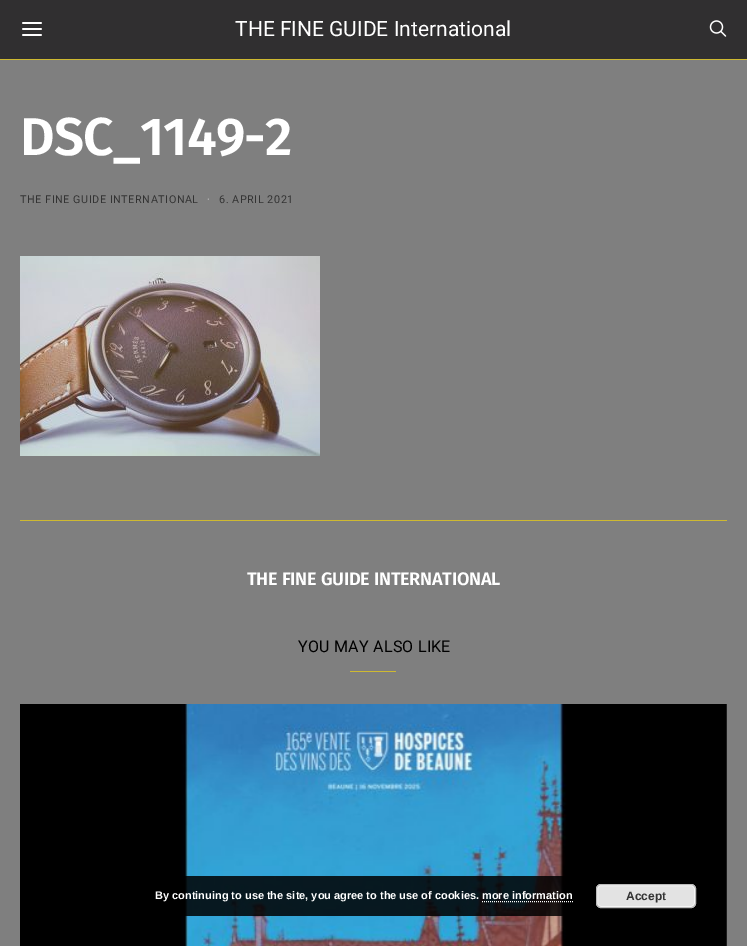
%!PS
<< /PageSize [747 946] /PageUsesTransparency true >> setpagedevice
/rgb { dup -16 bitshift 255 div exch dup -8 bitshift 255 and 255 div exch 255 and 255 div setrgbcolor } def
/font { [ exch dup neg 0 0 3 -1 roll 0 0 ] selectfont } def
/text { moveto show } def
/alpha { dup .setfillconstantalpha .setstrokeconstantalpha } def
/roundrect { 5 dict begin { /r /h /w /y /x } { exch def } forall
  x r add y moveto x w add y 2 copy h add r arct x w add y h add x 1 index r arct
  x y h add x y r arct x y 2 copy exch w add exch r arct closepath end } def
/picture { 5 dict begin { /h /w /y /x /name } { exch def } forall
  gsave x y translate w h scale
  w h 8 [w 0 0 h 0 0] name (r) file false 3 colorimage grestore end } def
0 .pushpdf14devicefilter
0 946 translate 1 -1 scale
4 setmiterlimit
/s1 { /Roboto-Regular 21 font 16#FFFFFF rgb } def
/s2 { /LiberationSans-Bold 11 font 16#FFFFFF rgb } def
/s3 { /LiberationSans-Bold 12 font 16#333333 rgb } def
16#7F7F7F rgb
0 0 747 946 rectfill
16#302F30 rgb
0 0 747 59 rectfill
16#CEB931 rgb
0 59 747 1 rectfill
(pic1.raw) 22 22 20 14 picture
s1
(THE FINE GUIDE International) 235 36 text
(pic2.raw) 709 20 18 17 picture
/FiraSans-SemiBold 53.25 font
20 155 moveto -0.75 0 (DSC_1149-2) ashow
/Roboto-Regular 10.8 font
16#333333 rgb
20 203 moveto 0.55 0 (THE FINE GUIDE INTERNATIONAL) ashow
16#C9C9C9 rgb
207 203 moveto 0.55 0 (·) ashow
16#333333 rgb
219 203 moveto 0.55 0 (6. APRIL 2021) ashow
(pic3.raw) 20 256 300 200 picture
16#CEB931 rgb
20 520 707 1 rectfill
/FiraSans-SemiBold 18.1 font
16#FFFFFF rgb
247 585 moveto -0.25 0 (THE FINE GUIDE INTERNATIONAL) ashow
/Roboto-Regular 16 font
16#000000 rgb
298 652 moveto 0.25 0 (YOU MAY ALSO LIKE) ashow
16#CEB931 rgb
350 671 46 1 rectfill
(pic4.raw) 20 704 707 242 picture
0.85 alpha
16#000000 rgb
134 876 583 40 5 roundrect fill
1 alpha
s2
(By continuing to use the site, you agree to the use of cookies. more information) 155 899 text
16#E3E3E3 rgb
596 884 100 24 5 roundrect fill
16#F6F6F6 rgb
597.5 885.5 97 21 3.5 roundrect stroke
16#BBBBBB rgb
596.5 884.5 99 23 4.5 roundrect stroke
s3
(Accept) 626 900 text
16#FFFFFF rgb
[1 1] 0 setdash
482 901.5 moveto 573 901.5 lineto stroke
.poppdf14devicefilter showpage
